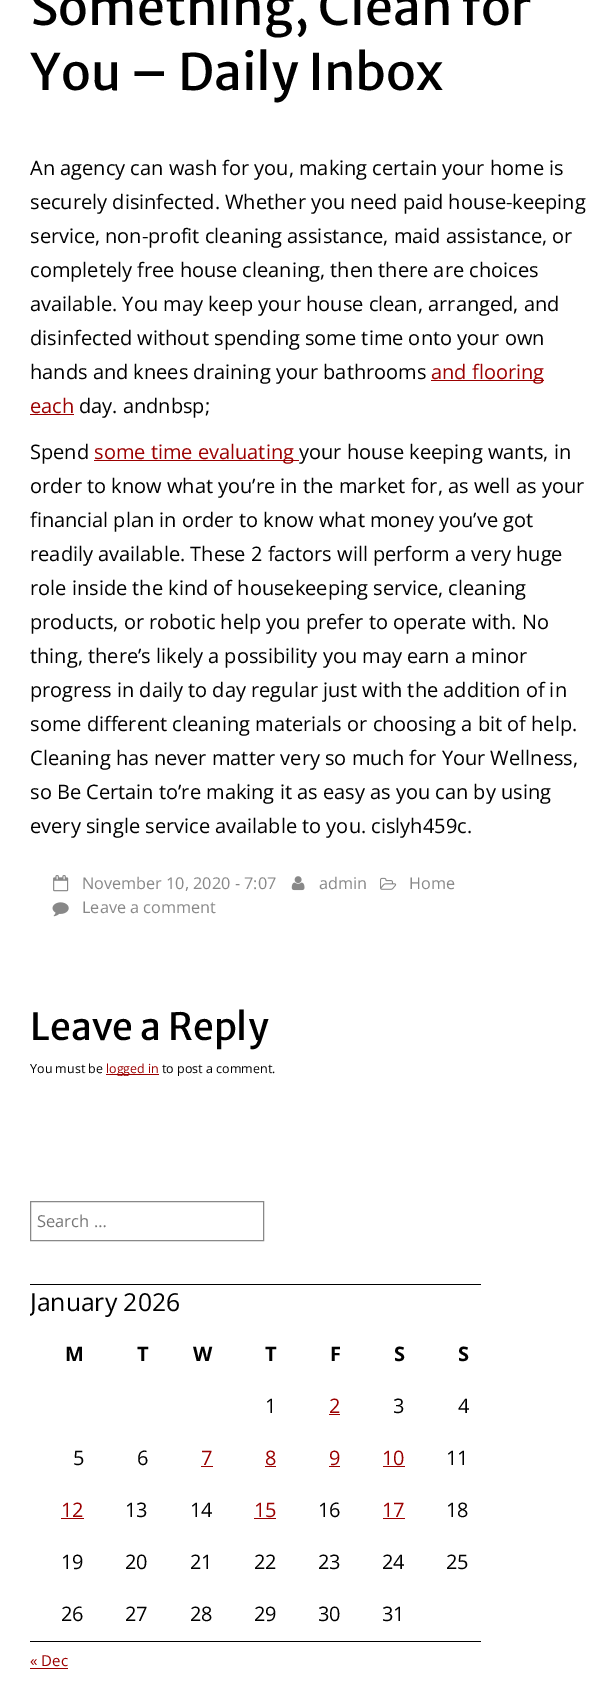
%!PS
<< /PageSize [606 1708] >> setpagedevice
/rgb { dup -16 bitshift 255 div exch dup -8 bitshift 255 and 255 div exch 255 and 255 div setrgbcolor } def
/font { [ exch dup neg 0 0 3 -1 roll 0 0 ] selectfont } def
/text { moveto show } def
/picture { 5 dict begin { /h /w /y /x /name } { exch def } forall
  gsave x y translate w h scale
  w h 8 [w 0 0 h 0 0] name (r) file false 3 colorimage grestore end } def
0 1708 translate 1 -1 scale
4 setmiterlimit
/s1 { /MerriweatherSans-Regular 50 font 16#000000 rgb } def
/s2 { /OpenSans-Regular 20 font 16#000000 rgb } def
/s3 { /OpenSans-Regular 20 font 16#9B0000 rgb } def
/s4 { /OpenSans-Regular 16.25 font 16#888888 rgb } def
/s5 { /MerriweatherSans-Regular 37.5 font 16#000000 rgb } def
/s6 { /OpenSans-Regular 12.5 font 16#000000 rgb } def
/s7 { /OpenSans-Regular 12.5 font 16#9B0000 rgb } def
/s8 { /OpenSans-Regular 16.5 font 16#757575 rgb } def
/s9 { /OpenSans-Regular 24.75 font 16#000000 rgb } def
/s10 { /OpenSans-Bold 20 font 16#000000 rgb } def
/s11 { /OpenSans-Regular 15 font 16#9B0000 rgb } def
16#FFFFFF rgb
0 0 606 1708 rectfill
s1
(Something, Clean for) 30 25 text
(You – Daily Inbox) 30 90 text
s2
(An agency can wash for you, making certain your home is) 30 175 text
(securely disinfected. Whether you need paid house-keeping) 30 209 text
(service, non-profit cleaning assistance, maid assistance, or) 30 243 text
(completely free house cleaning, then there are choices) 30 277 text
(available. You may keep your house clean, arranged, and) 30 311 text
(disinfected without spending some time onto your own) 30 345 text
(hands and knees draining your bathrooms) 30 379 text
16#9B0000 rgb
431 380 113 1 rectfill
(and flooring) 431 379 text
(each) 30 413 text
30 414 44 1 rectfill
s2
(day. andnbsp;) 79 413 text
(Spend) 30 459 text
16#9B0000 rgb
94 460 205 1 rectfill
(some time evaluating) 94 459 text
s2
(your house keeping wants, in) 299 459 text
(order to know what you’re in the market for, as well as your) 30 493 text
(financial plan in order to know what money you’ve got) 30 527 text
(readily available. These 2 factors will perform a very huge) 30 561 text
(role inside the kind of housekeeping service, cleaning) 30 595 text
(products, or robotic help you prefer to operate with. No) 30 629 text
(thing, there’s likely a possibility you may earn a minor) 30 663 text
(progress in daily to day regular just with the addition of in) 30 697 text
(some different cleaning materials or choosing a bit of help.) 30 731 text
(Cleaning has never matter very so much for Your Wellness,) 30 765 text
(so Be Certain to’re making it as easy as you can by using) 30 799 text
(every single service available to you. cislyh459c.) 30 833 text
(pic1.raw) 53 875 16 17 picture
s4
(November 10, 2020 - 7:07) 82 889 text
(pic2.raw) 291 876 14 15 picture
(admin) 319 889 text
(pic3.raw) 380 877 17 13 picture
(Home) 409 889 text
(pic4.raw) 52 902 17 15 picture
(Leave a comment) 82 913 text
s5
(Leave a Reply) 30 1040 text
s6
(You must be) 30 1073 text
16#9B0000 rgb
106 1074 53 1 rectfill
(logged in) 106 1073 text
s6
(to post a comment.) 162 1073 text
16#888888 rgb
30.5 1201.5 233 39 rectstroke
s8
(Search …) 37 1227 text
16#000000 rgb
30 1284 451 1 rectfill
30 1641 451 1 rectfill
gsave
30 1201 564 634 rectclip
s9
(January 2026) 30 1311 text
grestore
s10
(M) 65 1361 text
(T) 137 1361 text
(W) 193 1361 text
(T) 265 1361 text
(F) 330 1361 text
(S) 394 1361 text
(S) 458 1361 text
s2
(1) 265 1413 text
s3
(2) 329 1413 text
329 1414 11 1 rectfill
s2
(3) 393 1413 text
(4) 458 1413 text
(5) 73 1465 text
(6) 137 1465 text
s3
(7) 201 1465 text
201 1466 12 1 rectfill
(8) 265 1465 text
265 1466 11 1 rectfill
(9) 329 1465 text
329 1466 11 1 rectfill
(10) 382 1465 text
383 1466 22 1 rectfill
s2
(11) 446 1465 text
s3
(12) 61 1517 text
61 1518 23 1 rectfill
s2
(13) 125 1517 text
(14) 190 1517 text
s3
(15) 254 1517 text
254 1518 22 1 rectfill
s2
(16) 318 1517 text
s3
(17) 382 1517 text
383 1518 22 1 rectfill
s2
(18) 446 1517 text
(19) 61 1569 text
(20) 125 1569 text
(21) 190 1569 text
(22) 254 1569 text
(23) 318 1569 text
(24) 382 1569 text
(25) 446 1569 text
(26) 61 1621 text
(27) 125 1621 text
(28) 190 1621 text
(29) 254 1621 text
(30) 318 1621 text
(31) 382 1621 text
s11
(« Dec) 30 1666 text
30 1668 38 1 rectfill
showpage
